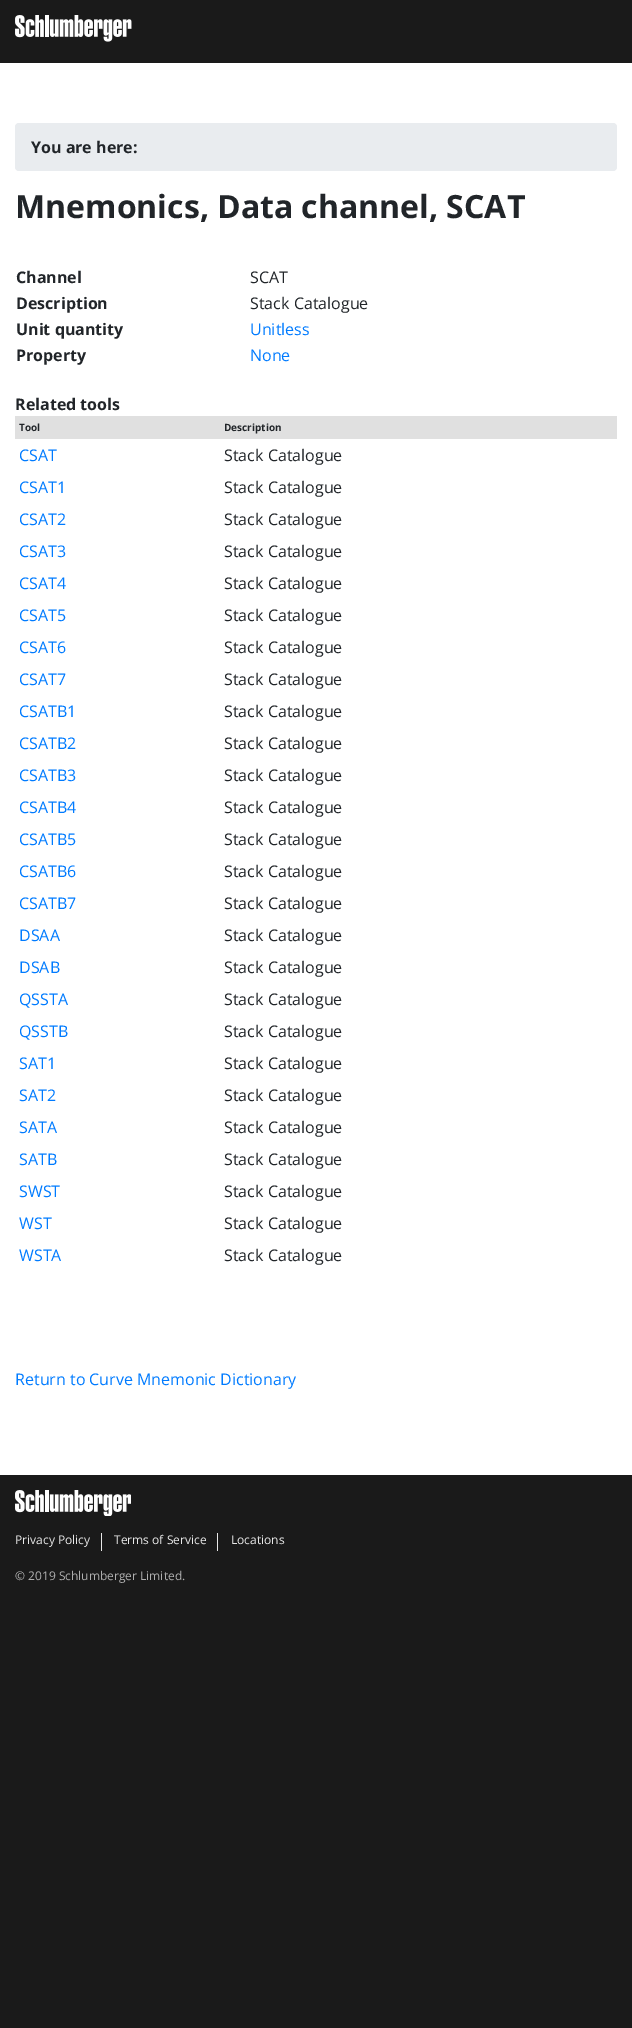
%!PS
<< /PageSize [632 2028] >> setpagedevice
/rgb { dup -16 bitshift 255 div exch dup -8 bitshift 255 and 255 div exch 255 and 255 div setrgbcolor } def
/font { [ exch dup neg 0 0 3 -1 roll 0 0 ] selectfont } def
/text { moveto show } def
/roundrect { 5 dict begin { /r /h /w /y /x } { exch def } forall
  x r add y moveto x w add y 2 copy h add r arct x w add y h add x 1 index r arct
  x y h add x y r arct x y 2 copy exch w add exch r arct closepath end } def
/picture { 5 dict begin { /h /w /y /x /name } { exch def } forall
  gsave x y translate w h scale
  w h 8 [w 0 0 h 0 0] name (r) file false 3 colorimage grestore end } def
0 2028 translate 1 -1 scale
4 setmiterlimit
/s1 { /OpenSans-Bold 16 font 16#212529 rgb } def
/s2 { /OpenSans-Bold 32 font 16#212529 rgb } def
/s3 { /OpenSans-Regular 16 font 16#212529 rgb } def
/s4 { /OpenSans-Regular 16 font 16#007BFF rgb } def
/s5 { /OpenSans-Bold 10 font 16#212529 rgb } def
/s6 { /OpenSans-Regular 12 font 16#E8E8E8 rgb } def
/s7 { /OpenSans-Regular 12 font 16#AFAFAF rgb } def
16#1A1A1A rgb
0 0 632 2028 rectfill
(pic1.raw) 15 15 117 27 picture
16#FFFFFF rgb
0 63 632 1412 rectfill
16#E9ECEF rgb
15 123 602 48 4 roundrect fill
s1
(You are here:) 31 153 text
s2
(Mnemonics, Data channel, SCAT) 15 218 text
s1
(Channel) 16 283 text
s3
(SCAT) 250 283 text
s1
(Description) 16 309 text
s3
(Stack Catalogue) 250 309 text
s1
(Unit quantity) 16 335 text
s4
(Unitless) 250 335 text
s1
(Property) 16 361 text
s4
(None) 250 361 text
s1
(Related tools) 15 410 text
16#E0E0E0 rgb
15 416 602 23 rectfill
s5
(Tool) 19 431 text
(Description) 224 431 text
s4
(CSAT) 19 461 text
s3
(Stack Catalogue) 224 461 text
s4
(CSAT1) 19 493 text
s3
(Stack Catalogue) 224 493 text
s4
(CSAT2) 19 525 text
s3
(Stack Catalogue) 224 525 text
s4
(CSAT3) 19 557 text
s3
(Stack Catalogue) 224 557 text
s4
(CSAT4) 19 589 text
s3
(Stack Catalogue) 224 589 text
s4
(CSAT5) 19 621 text
s3
(Stack Catalogue) 224 621 text
s4
(CSAT6) 19 653 text
s3
(Stack Catalogue) 224 653 text
s4
(CSAT7) 19 685 text
s3
(Stack Catalogue) 224 685 text
s4
(CSATB1) 19 717 text
s3
(Stack Catalogue) 224 717 text
s4
(CSATB2) 19 749 text
s3
(Stack Catalogue) 224 749 text
s4
(CSATB3) 19 781 text
s3
(Stack Catalogue) 224 781 text
s4
(CSATB4) 19 813 text
s3
(Stack Catalogue) 224 813 text
s4
(CSATB5) 19 845 text
s3
(Stack Catalogue) 224 845 text
s4
(CSATB6) 19 877 text
s3
(Stack Catalogue) 224 877 text
s4
(CSATB7) 19 909 text
s3
(Stack Catalogue) 224 909 text
s4
(DSAA) 19 941 text
s3
(Stack Catalogue) 224 941 text
s4
(DSAB) 19 973 text
s3
(Stack Catalogue) 224 973 text
s4
(QSSTA) 19 1005 text
s3
(Stack Catalogue) 224 1005 text
s4
(QSSTB) 19 1037 text
s3
(Stack Catalogue) 224 1037 text
s4
(SAT1) 19 1069 text
s3
(Stack Catalogue) 224 1069 text
s4
(SAT2) 19 1101 text
s3
(Stack Catalogue) 224 1101 text
s4
(SATA) 19 1133 text
s3
(Stack Catalogue) 224 1133 text
s4
(SATB) 19 1165 text
s3
(Stack Catalogue) 224 1165 text
s4
(SWST) 19 1197 text
s3
(Stack Catalogue) 224 1197 text
s4
(WST) 19 1229 text
s3
(Stack Catalogue) 224 1229 text
s4
(WSTA) 19 1261 text
s3
(Stack Catalogue) 224 1261 text
s4
(Return to Curve Mnemonic Dictionary) 15 1385 text
(pic2.raw) 15 1490 116 26 picture
s6
(Privacy Policy) 15 1544 text
101 1533 1 18 rectfill
(Terms of Service) 114 1544 text
217 1533 1 18 rectfill
(Locations) 231 1544 text
s7
(© 2019 Schlumberger Limited.) 15 1580 text
showpage
